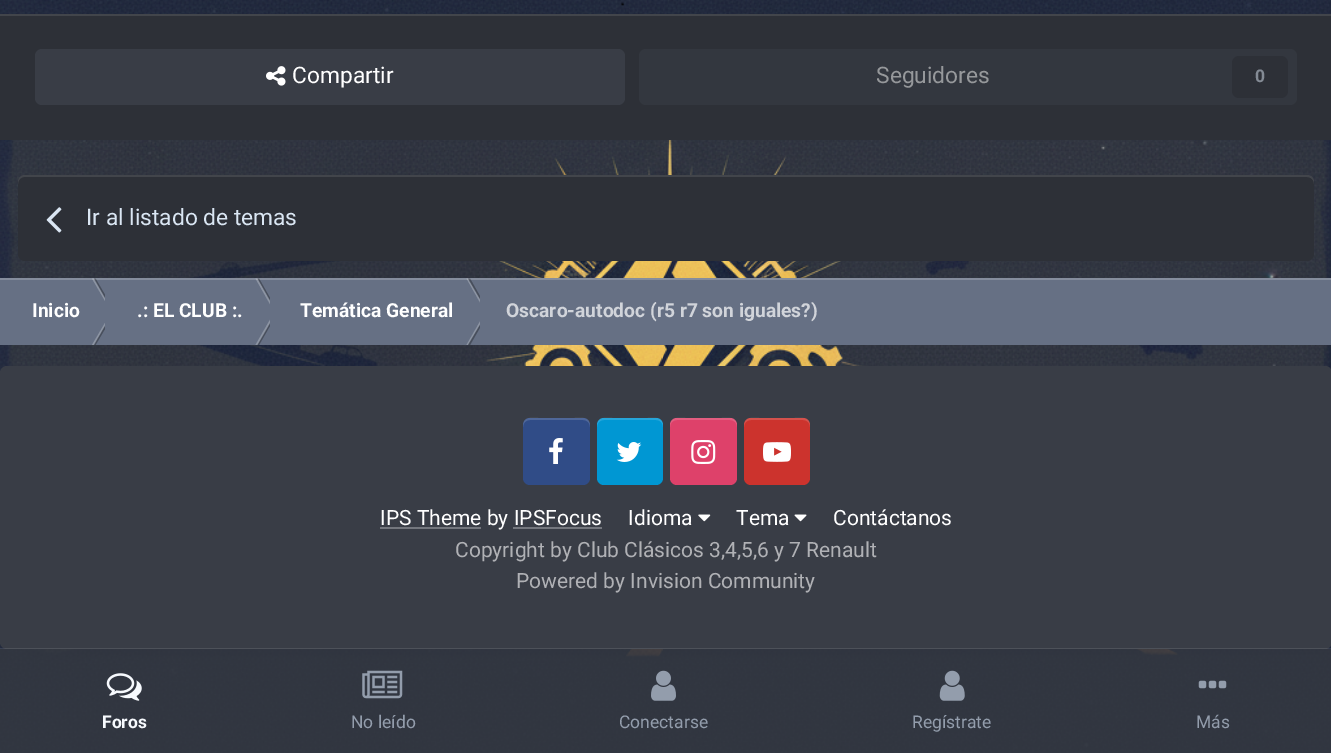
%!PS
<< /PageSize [1331 753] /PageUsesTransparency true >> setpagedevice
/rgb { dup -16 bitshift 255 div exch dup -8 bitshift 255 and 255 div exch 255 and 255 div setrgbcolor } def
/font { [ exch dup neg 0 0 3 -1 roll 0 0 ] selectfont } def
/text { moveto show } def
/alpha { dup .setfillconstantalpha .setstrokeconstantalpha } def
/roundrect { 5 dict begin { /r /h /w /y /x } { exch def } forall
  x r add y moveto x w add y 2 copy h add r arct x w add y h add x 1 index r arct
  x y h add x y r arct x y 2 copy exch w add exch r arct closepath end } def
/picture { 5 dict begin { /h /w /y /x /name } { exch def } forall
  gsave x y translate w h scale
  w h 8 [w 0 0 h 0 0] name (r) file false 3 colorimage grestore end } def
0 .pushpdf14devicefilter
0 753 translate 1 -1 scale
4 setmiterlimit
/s1 { /Roboto-Regular 22.75 font 16#FFFFFF rgb } def
/s2 { /Roboto-Regular 22.75 font 16#96989B rgb } def
/s3 { /Roboto-Bold 17.5 font 16#848B95 rgb } def
/s4 { /Roboto-Regular 22.75 font 16#DAE6F3 rgb } def
/s5 { /Roboto-Bold 19.25 font 16#FFFFFF rgb } def
/s6 { /Roboto-Bold 19.25 font 16#D1D4DA rgb } def
/s7 { /Roboto-Regular 21 font 16#FFFFFF rgb } def
/s8 { /Roboto-Regular 21 font 16#B0B1B5 rgb } def
/s9 { /Roboto-Bold 17.5 font 16#F7FAFE rgb } def
/s10 { /Roboto-Regular 17.5 font 16#939DAC rgb } def
16#FFFFFF rgb
0 0 1331 753 rectfill
(pic1.raw) 0 0 1331 753 picture
16#2D3037 rgb
0 16 1331 124 rectfill
16#42454B rgb
0 14 1331 2 rectfill
16#393D46 rgb
35 49 590 56 7 roundrect fill
(pic2.raw) 266 66 20 20 picture
s1
(Compartir) 292 83 text
16#33373F rgb
639 49 658 56 7 roundrect fill
s2
(Seguidores) 876 83 text
16#2D3037 rgb
1232 56 56 42 7 roundrect fill
s3
(0) 1255 82 text
16#2D3037 rgb
18 175 1296 86 7 roundrect fill
0.1 alpha
16#FFFFFF rgb
24 177 moveto 1307 177 lineto 1311 177 1314 180 1314 184 curveto 1314 182 lineto 1314 178 1311 175 1307 175 curveto 25 175 lineto 21 175 18 178 18 182 curveto 18 184 lineto 18 180 21 177 24 177 curveto closepath fill
1 alpha
(pic3.raw) 46 207 16 26 picture
s4
(Ir al listado de temas) 86 225 text
16#667084 rgb
0 280 1331 65 rectfill
16#858D9D rgb
0 278 1331 2 rectfill
gsave
0 278 105 67 rectclip
0.25 alpha
16#FFFFFF rgb
92 278.5 moveto 94 278.5 lineto 113 312 lineto 111.5 312 lineto closepath fill
0.3 alpha
16#000000 rgb
94 278.5 moveto 95.5 278.5 lineto 115 312 lineto 113 312 lineto closepath fill
grestore
s5
(Inicio) 32 317 text
gsave
0 278 105 67 rectclip
16#8C94A3 rgb
92 345 moveto 94 345 lineto 113 312 lineto 111.5 312 lineto closepath fill
0.3 alpha
16#000000 rgb
94 345 moveto 95.5 345 lineto 115 312 lineto 113 312 lineto closepath fill
grestore
gsave
105 278 165 67 rectclip
0.25 alpha
255.5 278.5 moveto 257.5 278.5 lineto 276.5 312 lineto 274.5 312 lineto closepath fill
0.3 alpha
16#000000 rgb
257.5 278.5 moveto 259 278.5 lineto 278 312 lineto 276.5 312 lineto closepath fill
grestore
(.: EL CLUB :.) 137 317 text
gsave
105 278 165 67 rectclip
16#8C94A3 rgb
255.5 345 moveto 257.5 345 lineto 276.5 312 lineto 274.5 312 lineto closepath fill
0.3 alpha
16#000000 rgb
257.5 345 moveto 259 345 lineto 278 312 lineto 276.5 312 lineto closepath fill
grestore
gsave
270 278 210 67 rectclip
0.25 alpha
466.5 278.5 moveto 468 278.5 lineto 487.5 312 lineto 485.5 312 lineto closepath fill
0.3 alpha
16#000000 rgb
468 278.5 moveto 470 278.5 lineto 489 312 lineto 487.5 312 lineto closepath fill
grestore
(Temática General) 300 317 text
gsave
270 278 210 67 rectclip
16#8C94A3 rgb
466.5 345 moveto 468 345 lineto 487.5 312 lineto 485.5 312 lineto closepath fill
0.3 alpha
16#000000 rgb
468 345 moveto 470 345 lineto 489 312 lineto 487.5 312 lineto closepath fill
grestore
s6
(Oscaro-autodoc \(r5 r7 son iguales?\)) 506 317 text
16#393D46 rgb
0 366 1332 283 7 roundrect fill
16#304C87 rgb
523 418 67 67 7 roundrect fill
0.15 alpha
16#FFFFFF rgb
530 420 moveto 526 420 523 423 523 427 curveto 523 416 530 418 539 418 curveto 574 418 lineto 583 418 590 416 590 427 curveto 590 423 587 420 583 420 curveto closepath fill
1 alpha
(pic4.raw) 549 438 14 26 picture
16#0097D3 rgb
597 418 66 67 7 roundrect fill
0.15 alpha
16#FFFFFF rgb
604 420 moveto 600 420 597 423 597 427 curveto 597 416 604 418 613 418 curveto 647 418 lineto 656 418 663 416 663 427 curveto 663 423 660 420 656 420 curveto closepath fill
1 alpha
(pic5.raw) 616 442 26 20 picture
16#DE416A rgb
670 418 67 67 7 roundrect fill
0.15 alpha
16#FFFFFF rgb
677 420 moveto 673 420 670 423 670 427 curveto 670 416 677 418 686 418 curveto 721 418 lineto 730 418 737 416 737 427 curveto 737 423 734 420 730 420 curveto closepath fill
1 alpha
(pic6.raw) 691 440 25 24 picture
16#CC332D rgb
744 418 66 67 7 roundrect fill
0.15 alpha
16#FFFFFF rgb
751 420 moveto 747 420 744 423 744 427 curveto 744 416 751 418 760 418 curveto 794 418 lineto 803 418 810 416 810 427 curveto 810 423 807 420 803 420 curveto closepath fill
1 alpha
(pic7.raw) 763 442 28 20 picture
16#74777E rgb
380 527 101 2 rectfill
s7
(IPS Theme by IPSFocus) 380 525 text
16#74777E rgb
513 527 89 2 rectfill
s7
(Idioma) 628 525 text
(pic8.raw) 698 514 13 8 picture
(Tema) 736 525 text
(pic9.raw) 794 514 13 8 picture
(Contáctanos) 833 525 text
s8
(Copyright by Club Clásicos 3,4,5,6 y 7 Renault) 455 557 text
(Powered by Invision Community) 516 588 text
0.1 alpha
16#FFFFFF rgb
0 648 moveto 0 649 lineto 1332 649 lineto 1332 753 lineto 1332 648 lineto closepath fill
0.8 alpha
16#353941 rgb
0 649 1331 104 rectfill
1 alpha
(pic10.raw) 106 673 36 28 picture
s9
(Foros) 102 728 text
(pic11.raw) 362 670 41 29 picture
s10
(No leído) 351 728 text
(pic12.raw) 651 670 25 31 picture
(Conectarse) 619 728 text
(pic13.raw) 939 670 26 31 picture
(Regístrate) 912 728 text
(pic14.raw) 1198 680 29 9 picture
(Más) 1196 728 text
.poppdf14devicefilter showpage
